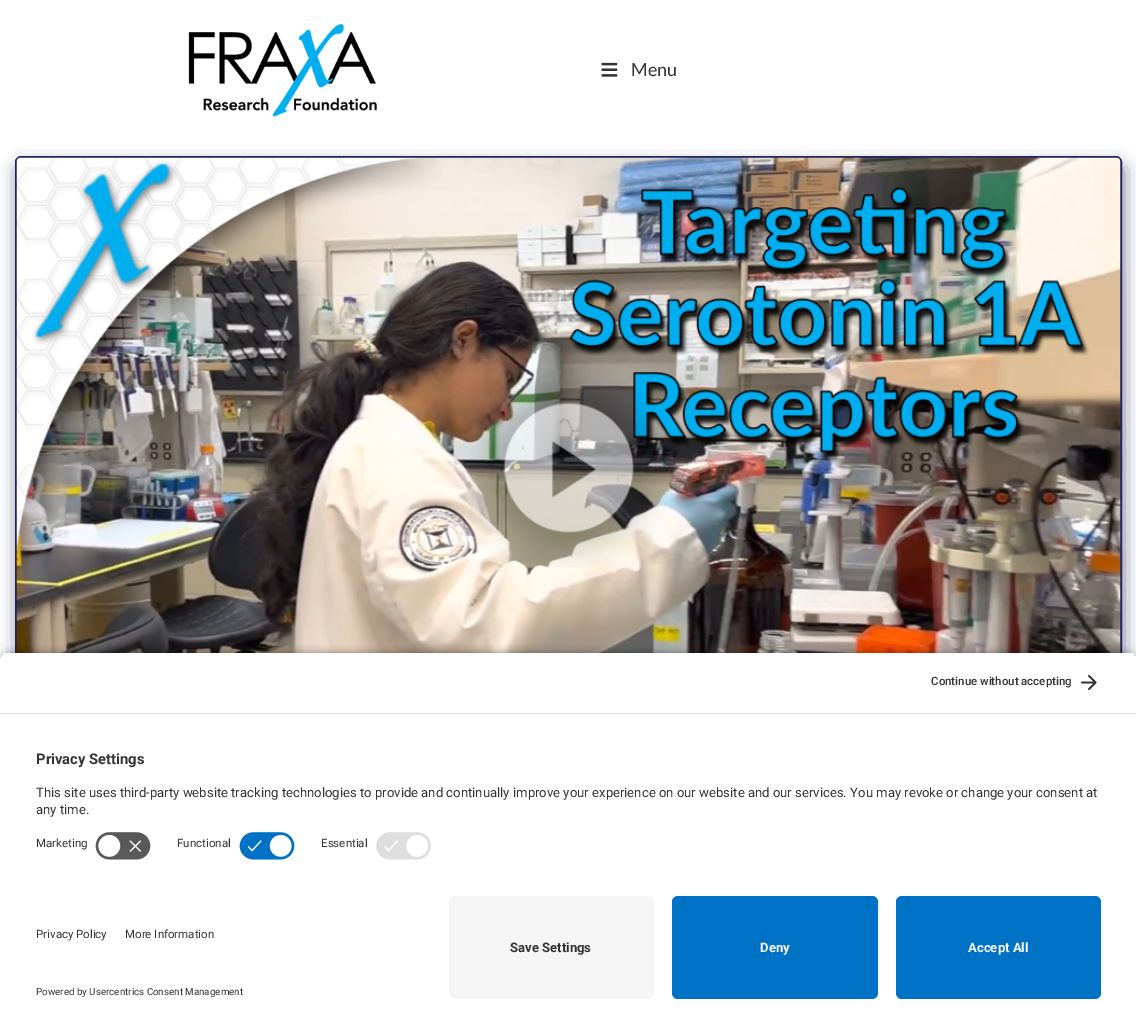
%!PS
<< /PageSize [1136 1034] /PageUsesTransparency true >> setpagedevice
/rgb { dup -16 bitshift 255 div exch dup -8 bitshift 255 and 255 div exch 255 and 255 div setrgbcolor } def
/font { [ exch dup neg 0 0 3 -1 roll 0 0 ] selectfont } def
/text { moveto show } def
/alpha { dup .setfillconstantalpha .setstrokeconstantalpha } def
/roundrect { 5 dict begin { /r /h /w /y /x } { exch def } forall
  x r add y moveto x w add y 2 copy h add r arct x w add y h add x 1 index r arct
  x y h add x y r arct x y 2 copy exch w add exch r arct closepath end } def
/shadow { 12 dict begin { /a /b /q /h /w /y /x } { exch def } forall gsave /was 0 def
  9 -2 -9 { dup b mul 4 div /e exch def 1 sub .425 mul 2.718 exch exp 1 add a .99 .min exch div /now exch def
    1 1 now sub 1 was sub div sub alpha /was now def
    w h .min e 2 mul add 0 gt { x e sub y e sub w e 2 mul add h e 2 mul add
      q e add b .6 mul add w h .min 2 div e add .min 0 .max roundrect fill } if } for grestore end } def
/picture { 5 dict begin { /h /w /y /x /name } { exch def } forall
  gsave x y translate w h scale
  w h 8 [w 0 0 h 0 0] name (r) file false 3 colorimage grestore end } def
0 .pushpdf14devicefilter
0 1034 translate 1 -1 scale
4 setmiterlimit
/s1 { /Lato-Regular 18 font 16#333333 rgb } def
/s2 { /Roboto-Medium 11.5 font 16#333333 rgb } def
/s3 { /Roboto-Bold 14.75 font 16#333333 rgb } def
/s4 { /Roboto-Regular 13.12 font 16#333333 rgb } def
/s5 { /Roboto-Regular 11.5 font 16#333333 rgb } def
/s6 { /Roboto-Regular 9.8 font 16#333333 rgb } def
/s7 { /Roboto-Bold 13.12 font 16#333333 rgb } def
/s8 { /Roboto-Bold 13.12 font 16#FAFAFA rgb } def
16#FFFFFF rgb
0 0 1136 1034 rectfill
(pic1.raw) 188 24 189 93 picture
(pic2.raw) 601 62 17 15 picture
s1
(Menu) 631 76 text
16#222556 rgb
17 165 1107 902 6 9 0.6 shadow
2 setlinewidth
16 157 1105 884 5 roundrect stroke
(pic3.raw) 16 157 1105 496 picture
16#000000 rgb
0 656 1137 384 12 5 0.8 shadow
gsave
12 651 moveto 1125 651 lineto 1131.5 651 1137 656.5 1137 663 curveto 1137 884 lineto 0 884 lineto 0 663 lineto 0 656.5 5.5 651 12 651 curveto closepath clip newpath
16#FFFFFF rgb
0 653 1136 60 rectfill
grestore
16#DEDEDE rgb
0 713 1136 1 rectfill
s2
(Continue without accepting) 931 685 text
(pic4.raw) 1081 674 16 16 picture
16#FFFFFF rgb
0 714 1136 320 rectfill
s3
(Privacy Settings) 36 764 text
s4
(This site uses third-party website tracking technologies to provide and continually improve your experience on our website and our services. You may revoke or change your consent at) 36 797 text
(any time.) 36 814 text
s5
(Marketing) 36 847 text
(pic5.raw) 95 832 56 28 picture
(Functional) 177 847 text
(pic6.raw) 239 832 56 29 picture
(Essential) 321 847 text
(pic7.raw) 376 832 55 28 picture
(Privacy Policy) 36 938 text
(More Information) 125 938 text
s6
(Powered by Usercentrics Consent Management) 36 995 text
16#F5F5F5 rgb
449 896 205 103 6 roundrect fill
s7
(Save Settings) 510 952 text
16#0072C6 rgb
672 896 206 103 6 roundrect fill
s8
(Deny) 760 952 text
16#0072C6 rgb
896 896 205 103 6 roundrect fill
s8
(Accept All) 968 952 text
.poppdf14devicefilter showpage
